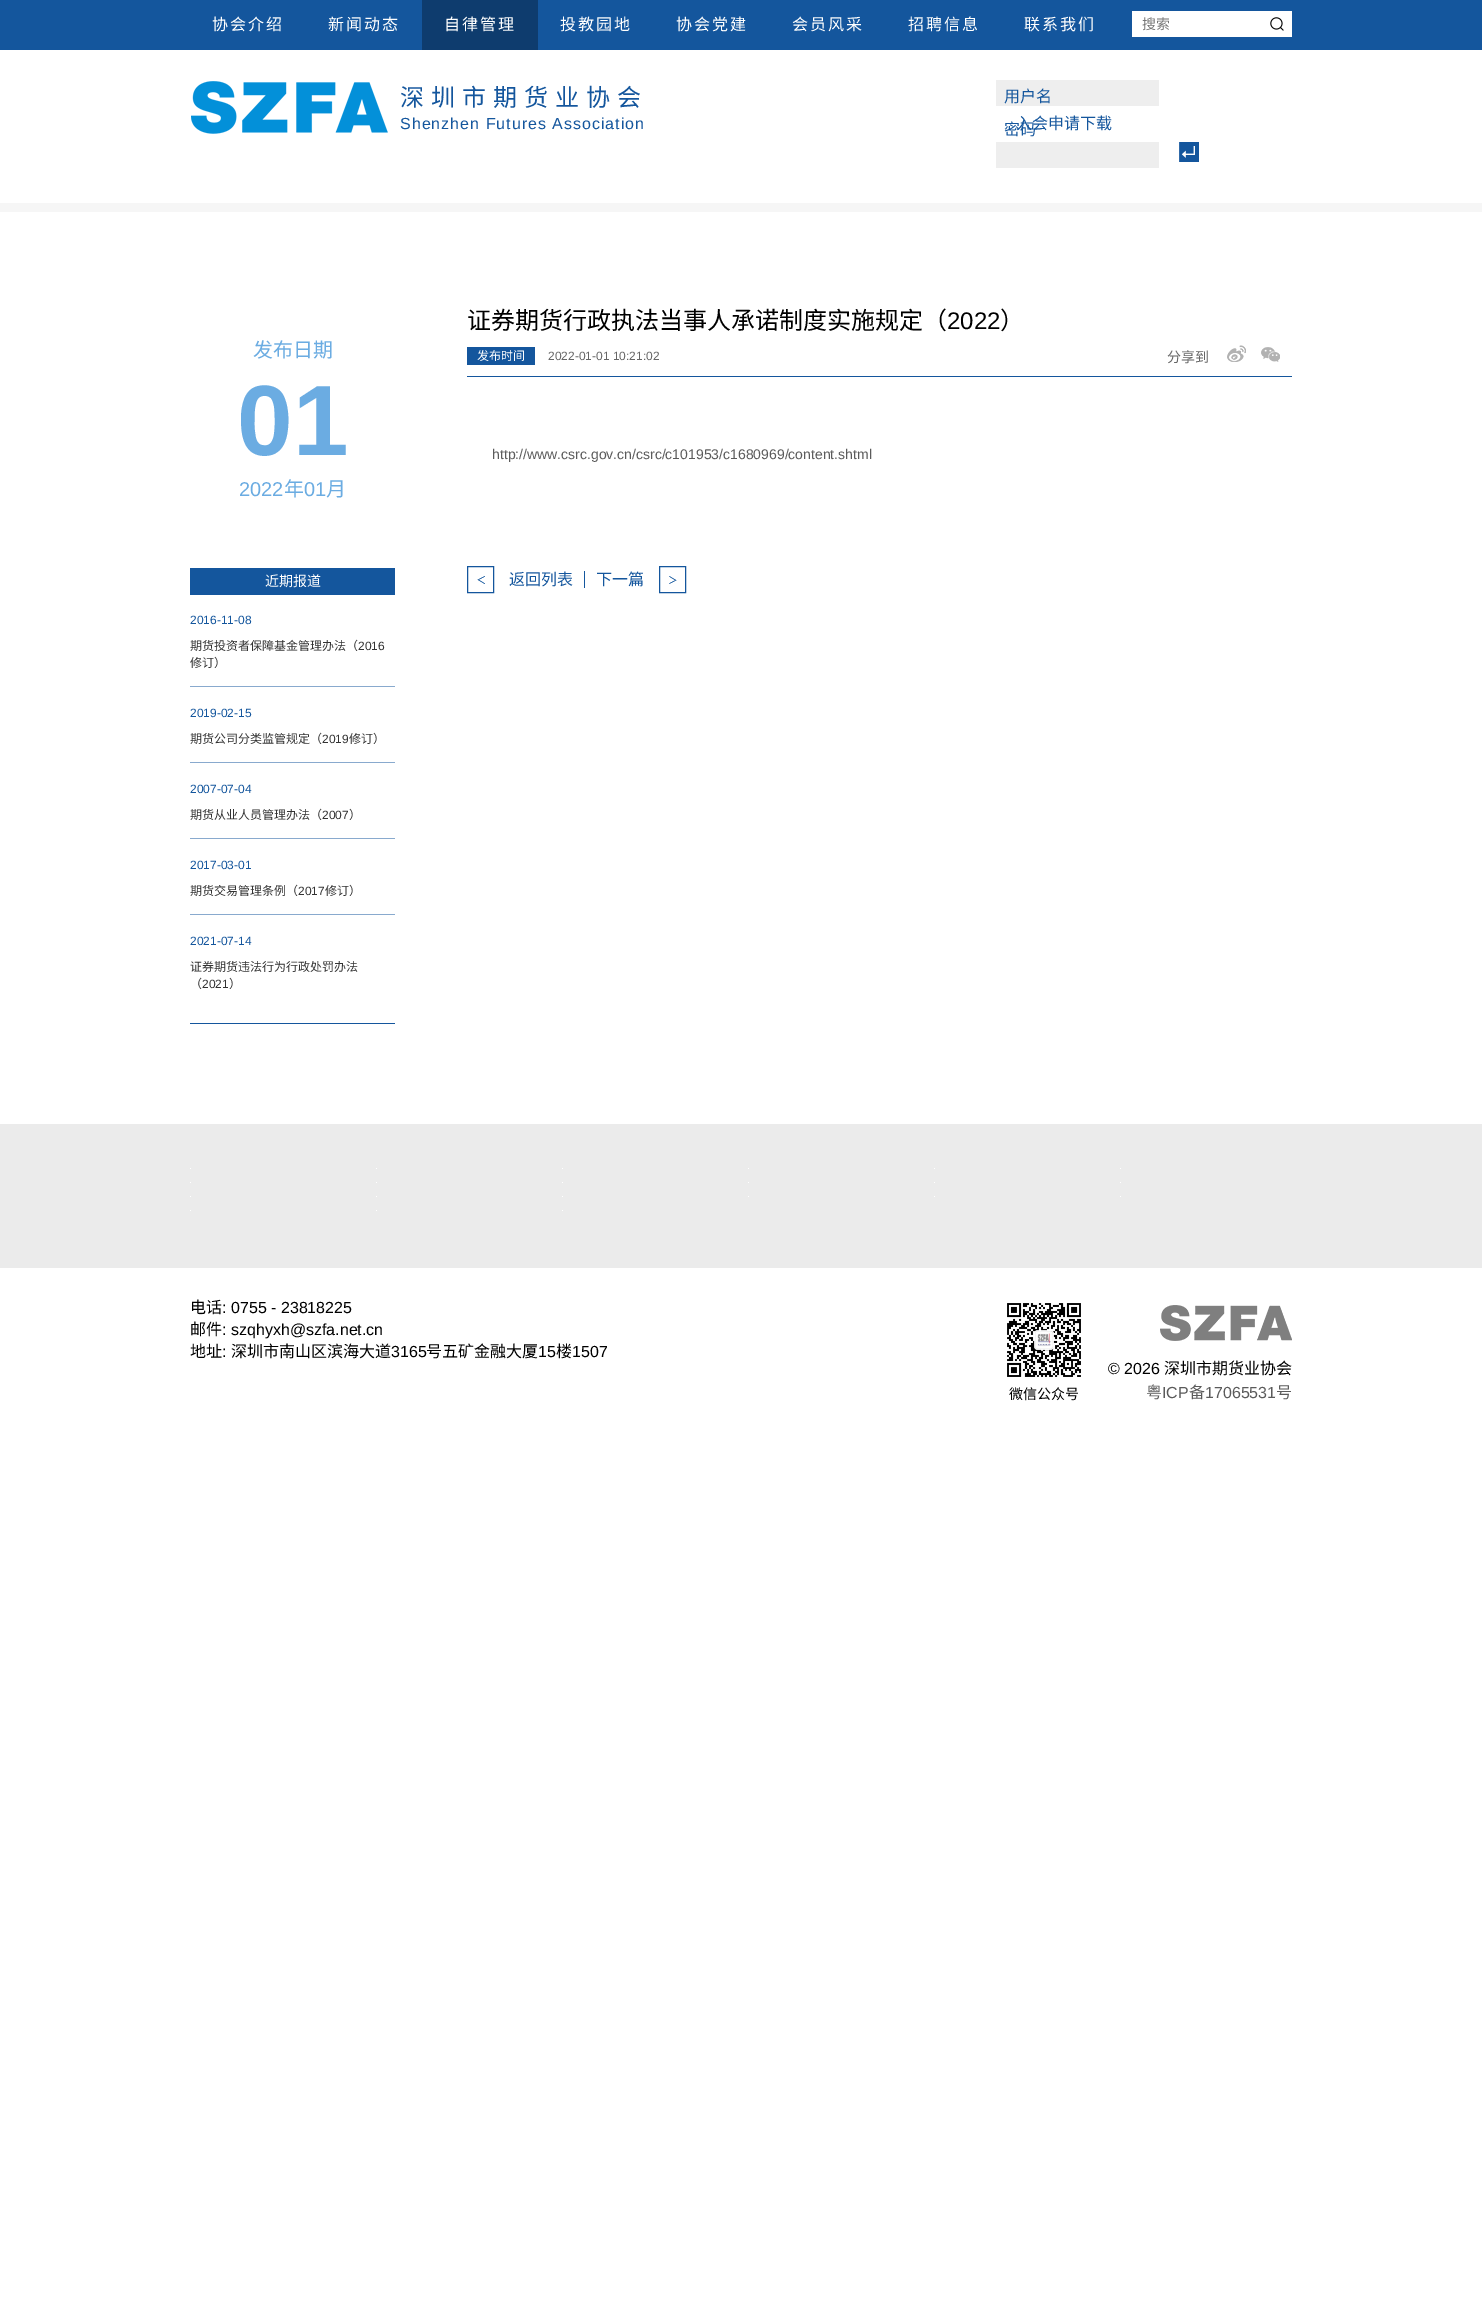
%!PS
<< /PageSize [1482 2316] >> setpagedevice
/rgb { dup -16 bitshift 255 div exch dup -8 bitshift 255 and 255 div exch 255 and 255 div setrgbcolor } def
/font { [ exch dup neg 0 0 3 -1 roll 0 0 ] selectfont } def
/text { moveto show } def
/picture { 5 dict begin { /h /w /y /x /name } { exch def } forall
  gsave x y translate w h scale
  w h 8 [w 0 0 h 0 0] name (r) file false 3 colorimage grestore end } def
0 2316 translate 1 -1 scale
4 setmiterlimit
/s1 { /NotoSansCJKSC-Regular 14 font 16#757575 rgb } def
/s2 { /NotoSansCJKSC-Regular 16 font 16#14569D rgb } def
/s3 { /NotoSansCJKSC-Regular 20 font 16#6BACE2 rgb } def
/s4 { /LiberationSans-Bold 100 font 16#6BACE2 rgb } def
/s5 { /LiberationSans-Regular 20 font 16#6BACE2 rgb } def
/s6 { /NotoSansCJKSC-Regular 14 font 16#FFFFFF rgb } def
/s7 { /LiberationSans-Regular 12 font 16#14569D rgb } def
/s8 { /NotoSansCJKSC-Regular 12 font 16#333333 rgb } def
/s9 { /LiberationSans-Regular 12 font 16#333333 rgb } def
/s10 { /NotoSansCJKSC-Regular 24 font 16#000000 rgb } def
/s11 { /LiberationSans-Regular 24 font 16#000000 rgb } def
/s12 { /NotoSansCJKSC-Regular 12 font 16#FFFFFF rgb } def
/s13 { /LiberationSans-Regular 12 font 16#666666 rgb } def
/s14 { /NotoSansCJKSC-Regular 14 font 16#666666 rgb } def
/s15 { /LiberationSans-Regular 14 font 16#5B5B5B rgb } def
/s16 { /NotoSansCJKSC-Regular 16 font 16#000000 rgb } def
/s17 { /LiberationSans-Regular 16 font 16#000000 rgb } def
/s18 { /NotoSansCJKSC-Regular 14 font 16#000000 rgb } def
/s19 { /NotoSansCJKSC-Regular 16 font 16#5B5B5B rgb } def
/s20 { /LiberationSans-Regular 16 font 16#5B5B5B rgb } def
16#FFFFFF rgb
0 0 1482 2316 rectfill
16#14569D rgb
0 0 1482 50 rectfill
/NotoSansCJKSC-Regular 16 font
16#FFFFFF rgb
212 30 moveto 2 0 (协会介绍) ashow
328 30 moveto 2 0 (新闻动态) ashow
16#0E3C6E rgb
422 0 116 50 rectfill
16#FFFFFF rgb
444 30 moveto 2 0 (自律管理) ashow
560 30 moveto 2 0 (投教园地) ashow
676 30 moveto 2 0 (协会党建) ashow
792 30 moveto 2 0 (会员风采) ashow
908 30 moveto 2 0 (招聘信息) ashow
1024 30 moveto 2 0 (联系我们) ashow
1132 11 160 26 rectfill
s1
(搜索) 1142 29 text
(pic1.raw) 1270 17 14 14 picture
(pic2.raw) 191 81 197 53 picture
/NotoSansCJKSC-Regular 24 font
16#14569D rgb
400 106 moveto 7 0 (深圳市期货业协会) ashow
/LiberationSans-Regular 16 font
400 129 moveto 1 0 (Shenzhen Futures Association) ashow
16#EEEEEE rgb
996 80 163 26 rectfill
s2
(用户名) 1004 102 text
(入会申请下载) 1016 129 text
(密码) 1004 135 text
16#EEEEEE rgb
996 142 163 26 rectfill
(pic3.raw) 1179 142 20 20 picture
16#F6F6F6 rgb
0 203 1482 9 rectfill
s3
(发布日期) 253 357 text
s4
(01) 237 455 text
s5
(2022) 239 496 text
s3
(年) 284 496 text
s5
(01) 304 496 text
s3
(月) 326 496 text
16#14569D rgb
190 568 205 27 rectfill
s6
(近期报道) 265 586 text
16#14569D rgb
190 1023 205 1 rectfill
16#89AACE rgb
190 686 205 1 rectfill
s7
(2016-11-08) 190 624 text
s8
(期货投资者保障基金管理办法（) 190 650 text
s9
(2016) 358 650 text
s8
(修订）) 190 667 text
16#89AACE rgb
190 762 205 1 rectfill
s7
(2019-02-15) 190 717 text
s8
(期货公司分类监管规定（) 190 743 text
s9
(2019) 322 743 text
s8
(修订）) 349 743 text
16#89AACE rgb
190 838 205 1 rectfill
s7
(2007-07-04) 190 793 text
s8
(期货从业人员管理办法（) 190 819 text
s9
(2007) 322 819 text
s8
(）) 349 819 text
16#89AACE rgb
190 914 205 1 rectfill
s7
(2017-03-01) 190 869 text
s8
(期货交易管理条例（) 190 895 text
s9
(2017) 298 895 text
s8
(修订）) 325 895 text
s7
(2021-07-14) 190 945 text
s8
(证券期货违法行为行政处罚办法) 190 971 text
(（) 190 988 text
s9
(2021) 202 988 text
s8
(）) 229 988 text
s10
(证券期货行政执法当事人承诺制度实施规定（) 467 329 text
s11
(2022) 947 329 text
s10
(）) 1000 329 text
16#14569D rgb
467 376 825 1 rectfill
467 347 68 18 rectfill
s12
(发布时间) 477 360 text
s13
(2022-01-01 10:21:02) 548 360 text
s14
(分享到) 1167 362 text
(pic4.raw) 1227 345 19 17 picture
(pic5.raw) 1261 347 19 15 picture
s15
(http://www.csrc.gov.cn/csrc/c101953/c1680969/content.shtml) 492 459 text
(pic6.raw) 477 576 8 8 picture
16#14569D rgb
467.5 566.5 26 26 rectstroke
s2
(返回列表) 509 585 text
16#14579E rgb
584 571 1 17 rectfill
s2
(下一篇) 596 585 text
(pic7.raw) 669 576 8 8 picture
659.5 566.5 26 26 rectstroke
16#EBEBEB rgb
0 1124 1482 144 rectfill
16#FFFFFF rgb
190 1168 1 1 rectfill
376 1168 1 1 rectfill
562 1168 1 1 rectfill
748 1168 1 1 rectfill
934 1168 1 1 rectfill
1120 1168 1 1 rectfill
190 1182 1 1 rectfill
376 1182 1 1 rectfill
562 1182 1 1 rectfill
748 1182 1 1 rectfill
934 1182 1 1 rectfill
1120 1182 1 1 rectfill
190 1196 1 1 rectfill
376 1196 1 1 rectfill
562 1196 1 1 rectfill
748 1196 1 1 rectfill
934 1196 1 1 rectfill
1120 1196 1 1 rectfill
190 1210 1 1 rectfill
376 1210 1 1 rectfill
562 1210 1 1 rectfill
s16
(电话) 190 1313 text
s17
(: 0755 - 23818225) 222 1313 text
s16
(邮件) 190 1335 text
s17
(: szqhyxh@szfa.net.cn) 222 1335 text
s16
(地址) 190 1357 text
s17
(:) 222 1357 text
s16
(深圳市南山区滨海大道) 231 1357 text
s17
(3165) 391 1357 text
s16
(号五矿金融大厦) 426 1357 text
s17
(15) 538 1357 text
s16
(楼) 556 1357 text
s17
(1507) 572 1357 text
(pic8.raw) 1007 1303 74 74 picture
s18
(微信公众号) 1009 1399 text
(pic9.raw) 1160 1305 132 36 picture
s17
(© 2026) 1108 1374 text
s16
(深圳市期货业协会) 1164 1374 text
s19
(粤) 1146 1398 text
s20
(ICP) 1162 1398 text
s19
(备) 1189 1398 text
s20
(17065531) 1205 1398 text
s19
(号) 1276 1398 text
showpage
